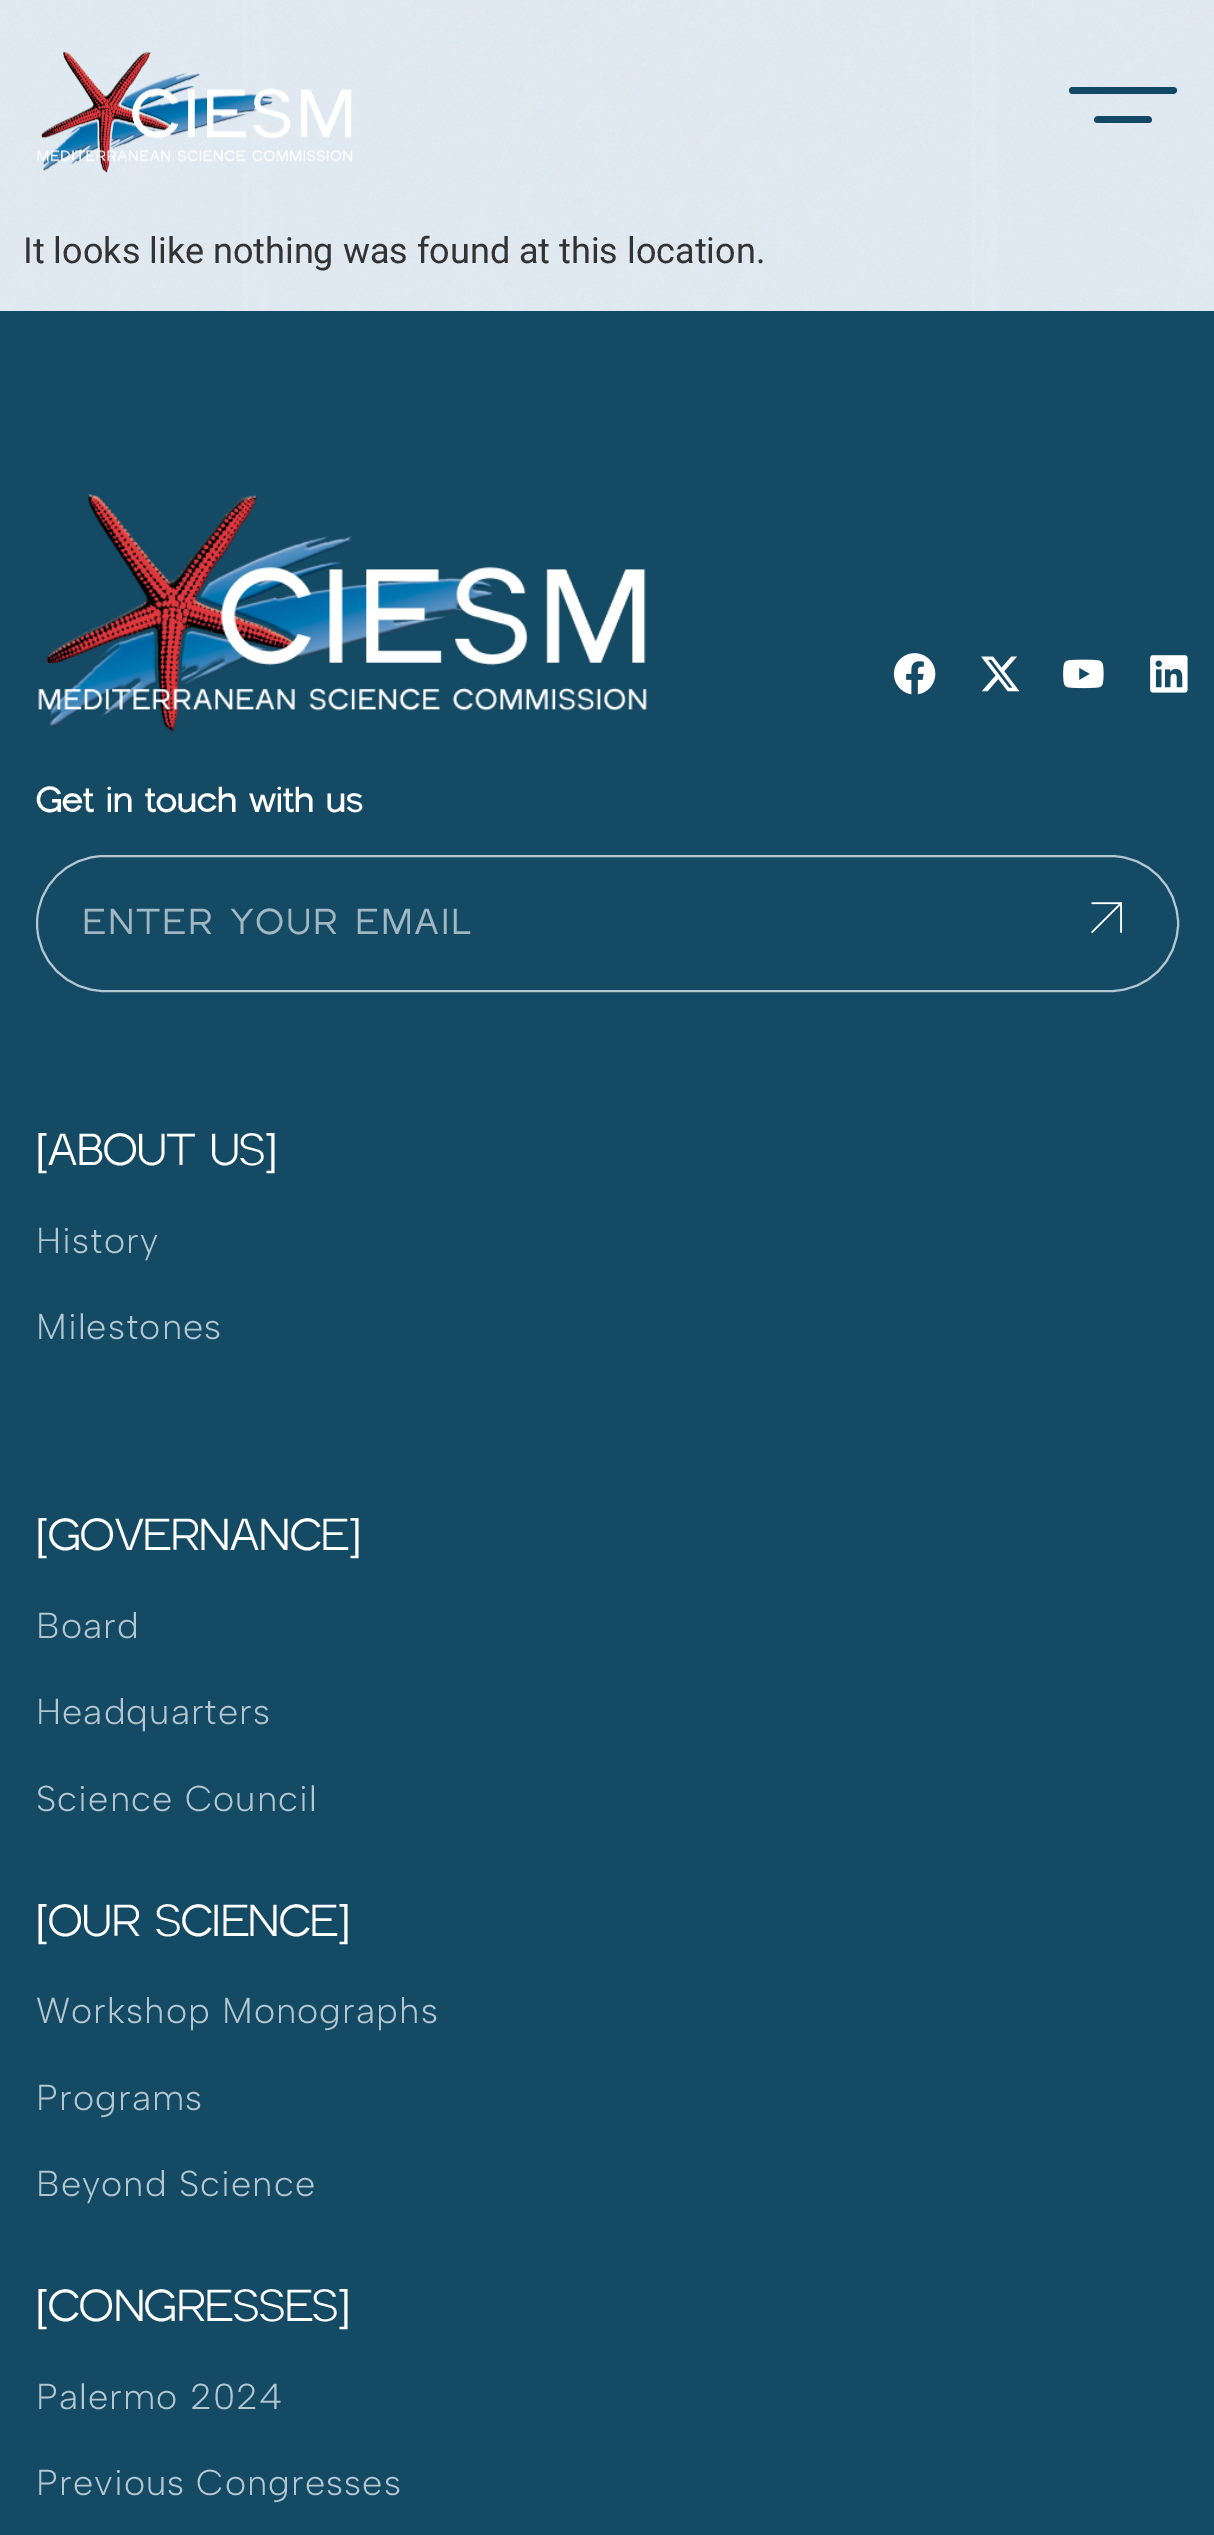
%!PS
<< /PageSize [1214 2535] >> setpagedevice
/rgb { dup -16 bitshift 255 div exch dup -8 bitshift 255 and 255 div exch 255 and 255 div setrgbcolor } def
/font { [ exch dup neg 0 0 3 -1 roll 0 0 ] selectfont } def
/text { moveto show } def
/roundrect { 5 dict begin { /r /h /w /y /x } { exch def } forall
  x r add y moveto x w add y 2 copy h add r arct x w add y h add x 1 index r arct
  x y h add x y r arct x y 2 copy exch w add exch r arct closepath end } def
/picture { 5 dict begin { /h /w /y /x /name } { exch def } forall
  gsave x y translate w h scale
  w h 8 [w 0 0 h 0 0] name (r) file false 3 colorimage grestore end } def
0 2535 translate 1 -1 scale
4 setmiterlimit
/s1 { /Roboto-Regular 36 font 16#333333 rgb } def
/s2 { /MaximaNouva-SemiBold 36 font 16#FFFFFF rgb } def
/s3 { /MaximaNouva-Thin 45 font 16#FFFFFF rgb } def
16#FFFFFF rgb
0 0 1214 2535 rectfill
(pic1.raw) 0 0 1214 311 picture
(pic2.raw) 37 51 316 122 picture
16#144966 rgb
1069 90 moveto 1069 88 1071 87 1073 87 curveto 1172 87 lineto 1175 87 1177 88 1177 90 curveto 1177 93 1175 94 1172 94 curveto 1073 94 lineto 1071 94 1069 93 1069 90 curveto closepath 1094 120 moveto 1094 118 1096 116 1098 116 curveto 1148 116 lineto 1150 116 1152 118 1152 120 curveto 1152 122 1150 123 1148 123 curveto 1098 123 lineto 1096 123 1094 122 1094 120 curveto closepath eofill
s1
(It looks like nothing was found at this location.) 23 263 text
16#144A64 rgb
0 311 1214 2224 rectfill
(pic3.raw) 38 494 609 238 picture
(pic4.raw) 893 653 43 42 picture
(pic5.raw) 981 656 39 36 picture
(pic6.raw) 1063 659 41 30 picture
(pic7.raw) 1150 655 38 38 picture
s2
(Get in touch with us) 36 812 text
16#B4C7D1 rgb
2 setlinewidth
37 856 1141 135 67.5 roundrect stroke
/MaximaNouva-Regular 36 font
16#A1B7C1 rgb
83 934 moveto 3.6 0 (ENTER YOUR EMAIL) ashow
(pic8.raw) 1091 902 31 31 picture
s3
([ABOUT US]) 36 1165 text
/AlbertSans-Light 36 font
16#B4C7D1 rgb
36 1253 moveto 1.1 0 (History) ashow
36 1339 moveto 1.1 0 (Milestones) ashow
s3
([GOVERNANCE]) 36 1550 text
/AlbertSans-Light 36 font
16#B4C7D1 rgb
36 1638 moveto 1.1 0 (Board) ashow
36 1724 moveto 1.1 0 (Headquarters) ashow
36 1811 moveto 1.1 0 (Science Council) ashow
s3
([OUR SCIENCE]) 36 1936 text
/AlbertSans-Light 36 font
16#B4C7D1 rgb
36 2023 moveto 1.1 0 (Workshop Monographs) ashow
36 2110 moveto 1.1 0 (Programs) ashow
36 2196 moveto 1.1 0 (Beyond Science) ashow
s3
([CONGRESSES]) 36 2321 text
/AlbertSans-Light 36 font
16#B4C7D1 rgb
36 2409 moveto 1.1 0 (Palermo 2024) ashow
36 2495 moveto 1.1 0 (Previous Congresses) ashow
showpage
